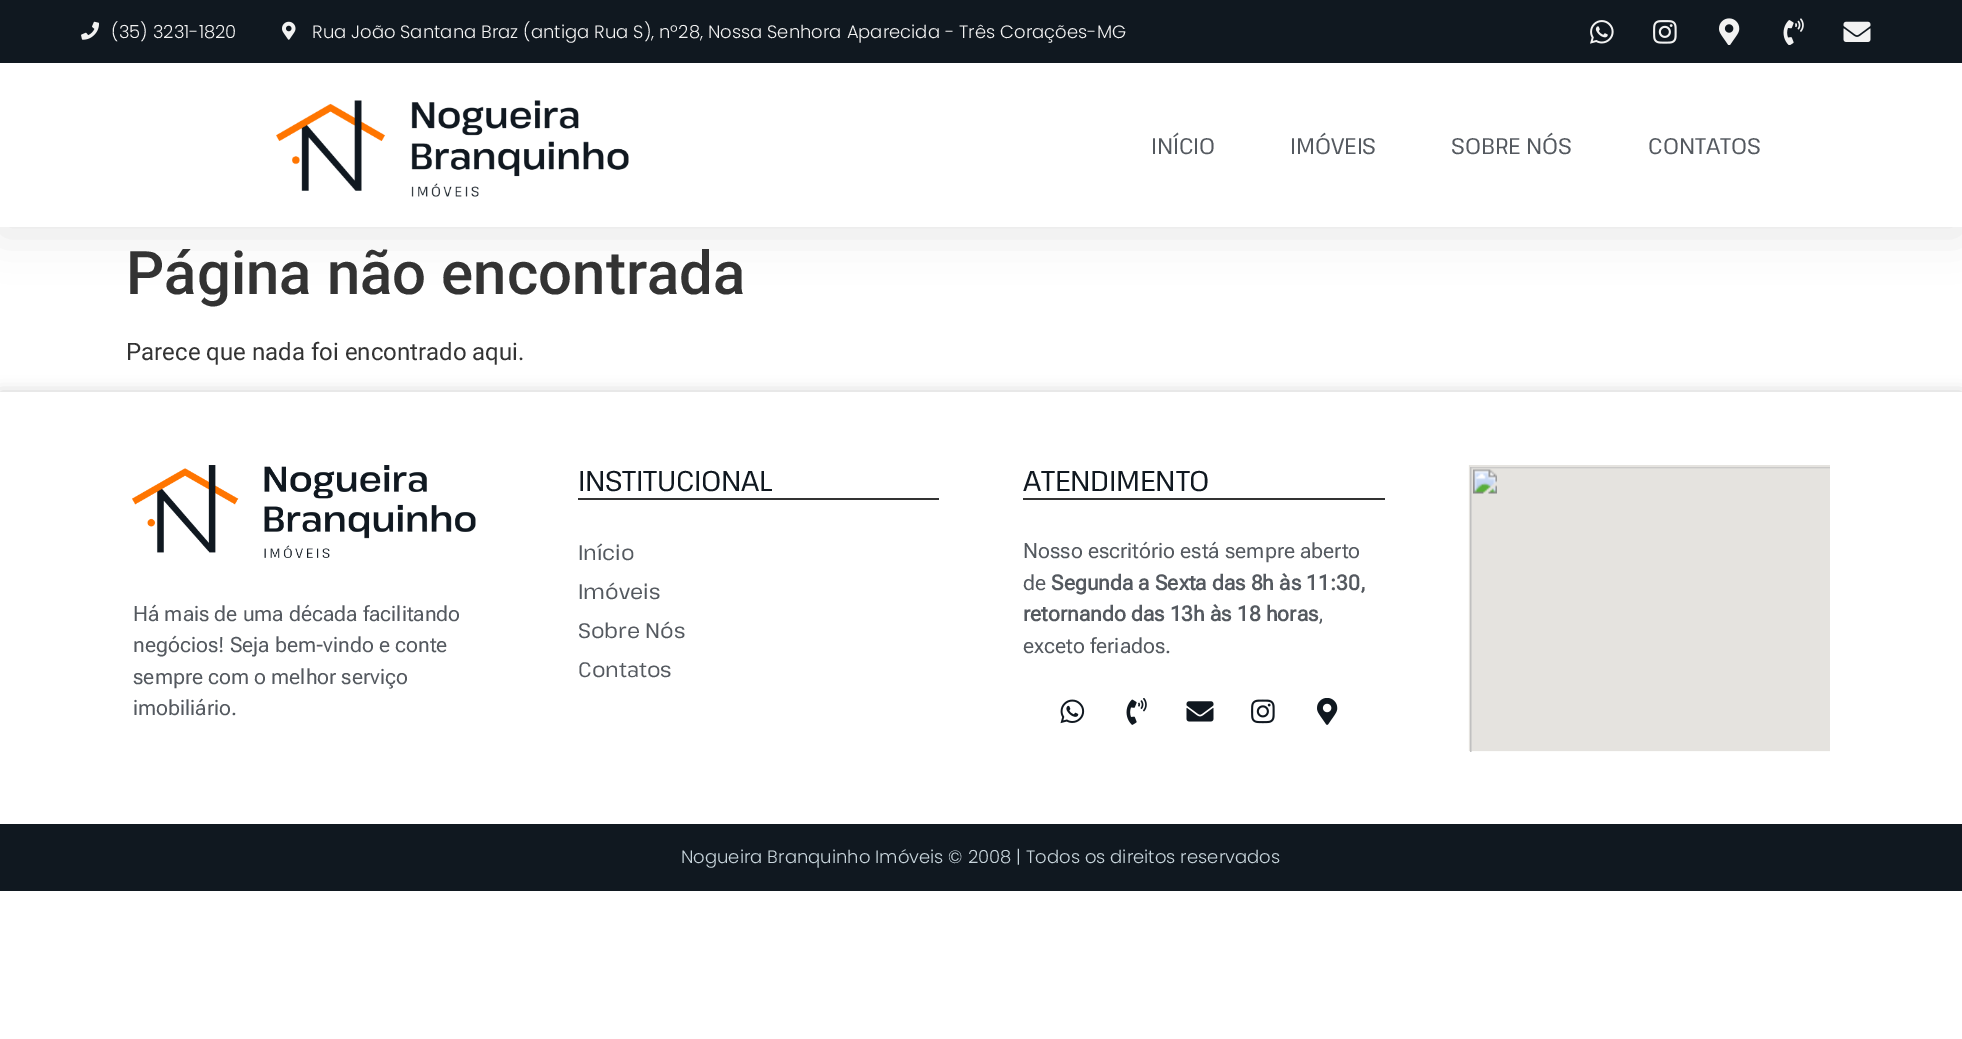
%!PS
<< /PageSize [1962 1039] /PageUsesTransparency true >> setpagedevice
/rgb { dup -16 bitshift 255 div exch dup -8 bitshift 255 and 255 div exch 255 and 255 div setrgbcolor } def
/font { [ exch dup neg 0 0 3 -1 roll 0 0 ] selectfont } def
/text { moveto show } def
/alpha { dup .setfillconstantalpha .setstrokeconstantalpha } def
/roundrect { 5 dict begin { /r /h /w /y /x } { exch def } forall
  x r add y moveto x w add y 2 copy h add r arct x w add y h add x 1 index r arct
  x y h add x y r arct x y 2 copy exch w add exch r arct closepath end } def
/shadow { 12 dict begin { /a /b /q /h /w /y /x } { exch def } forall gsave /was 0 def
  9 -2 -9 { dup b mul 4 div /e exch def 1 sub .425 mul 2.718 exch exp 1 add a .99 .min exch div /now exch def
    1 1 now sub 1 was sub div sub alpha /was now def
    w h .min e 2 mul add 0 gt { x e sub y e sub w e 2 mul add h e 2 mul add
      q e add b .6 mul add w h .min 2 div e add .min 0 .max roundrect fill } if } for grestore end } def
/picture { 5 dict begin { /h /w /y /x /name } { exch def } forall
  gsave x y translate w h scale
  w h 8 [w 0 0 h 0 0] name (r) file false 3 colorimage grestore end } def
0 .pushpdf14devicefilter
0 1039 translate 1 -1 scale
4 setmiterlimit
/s1 { /Poppins-Light 18 font 16#F2F2F2 rgb } def
/s2 { /PathwayExtreme-Regular 22.5 font 16#54595F rgb } def
/s3 { /Roboto-Medium 60 font 16#333333 rgb } def
/s4 { /Roboto-Regular 24 font 16#333333 rgb } def
/s5 { /RobotoFlex-Regular 21 font 16#54595F rgb } def
/s6 { /PathwayExtreme-Regular 21 font 16#54595F rgb } def
/s7 { /RobotoFlex-Bold 21 font 16#54595F rgb } def
/s8 { /Poppins-Light 18 font 16#C8D5DC rgb } def
16#FFFFFF rgb
0 0 1962 1039 rectfill
16#000000 rgb
0 8 1962 226 0 22.5 0.1 shadow
16#101820 rgb
0 0 1962 63 rectfill
(pic1.raw) 81 21 18 19 picture
s1
(\(35\) 3231-1820) 111 38 text
(pic2.raw) 282 21 14 19 picture
(Rua João Santana Braz \(antiga Rua S\), nº28, Nossa Senhora Aparecida - Três Corações-MG) 312 38 text
(pic3.raw) 1590 20 24 24 picture
(pic4.raw) 1653 20 24 24 picture
(pic5.raw) 1719 18 21 27 picture
(pic6.raw) 1783 18 21 27 picture
(pic7.raw) 1843 21 28 21 picture
16#FFFFFF rgb
0 63 1962 164 rectfill
(pic8.raw) 276 100 353 97 picture
s2
(INÍCIO) 1151 154 text
(IMÓVEIS) 1290 154 text
(SOBRE NÓS) 1451 154 text
(CONTATOS) 1648 154 text
s3
(Página não encontrada) 126 294 text
s4
(Parece que nada foi encontrado aqui.) 126 360 text
16#000000 rgb
0 392 1962 432 0 7.5 0.18 shadow
16#FFFFFF rgb
0 392 1962 432 rectfill
(pic9.raw) 132 465 344 93 picture
s5
(Há mais de uma década facilitando) 133 621 text
(negócios! Seja bem-vindo e conte) 133 652 text
(sempre com o melhor serviço) 133 684 text
(imobiliário.) 133 715 text
16#333333 rgb
578 498 361 2 rectfill
/PathwayExtreme-Regular 28.5 font
16#101820 rgb
578 491 moveto -0.25 0 (INSTITUCIONAL) ashow
s6
(Início) 578 560 text
(Imóveis) 578 599 text
(Sobre Nós) 578 638 text
(Contatos) 578 677 text
16#333333 rgb
1023 498 362 2 rectfill
/PathwayExtreme-Regular 28.5 font
16#101820 rgb
1023 491 moveto -0.25 0 (ATENDIMENTO) ashow
s5
(Nosso escritório está sempre aberto) 1023 558 text
(de) 1023 590 text
s7
(Segunda a Sexta das 8h às 11:30,) 1051 590 text
(retornando das 13h às 18 horas) 1023 621 text
s5
(,) 1318 621 text
(exceto feriados.) 1023 653 text
(pic10.raw) 1060 699 25 25 picture
(pic11.raw) 1126 698 21 27 picture
(pic12.raw) 1186 701 28 21 picture
(pic13.raw) 1251 699 24 25 picture
(pic14.raw) 1317 698 21 27 picture
(pic15.raw) 1468 465 362 287 picture
16#101820 rgb
0 824 1962 67 rectfill
s8
(Nogueira Branquinho Imóveis © 2008 | Todos os direitos reservados) 681 863 text
.poppdf14devicefilter showpage
